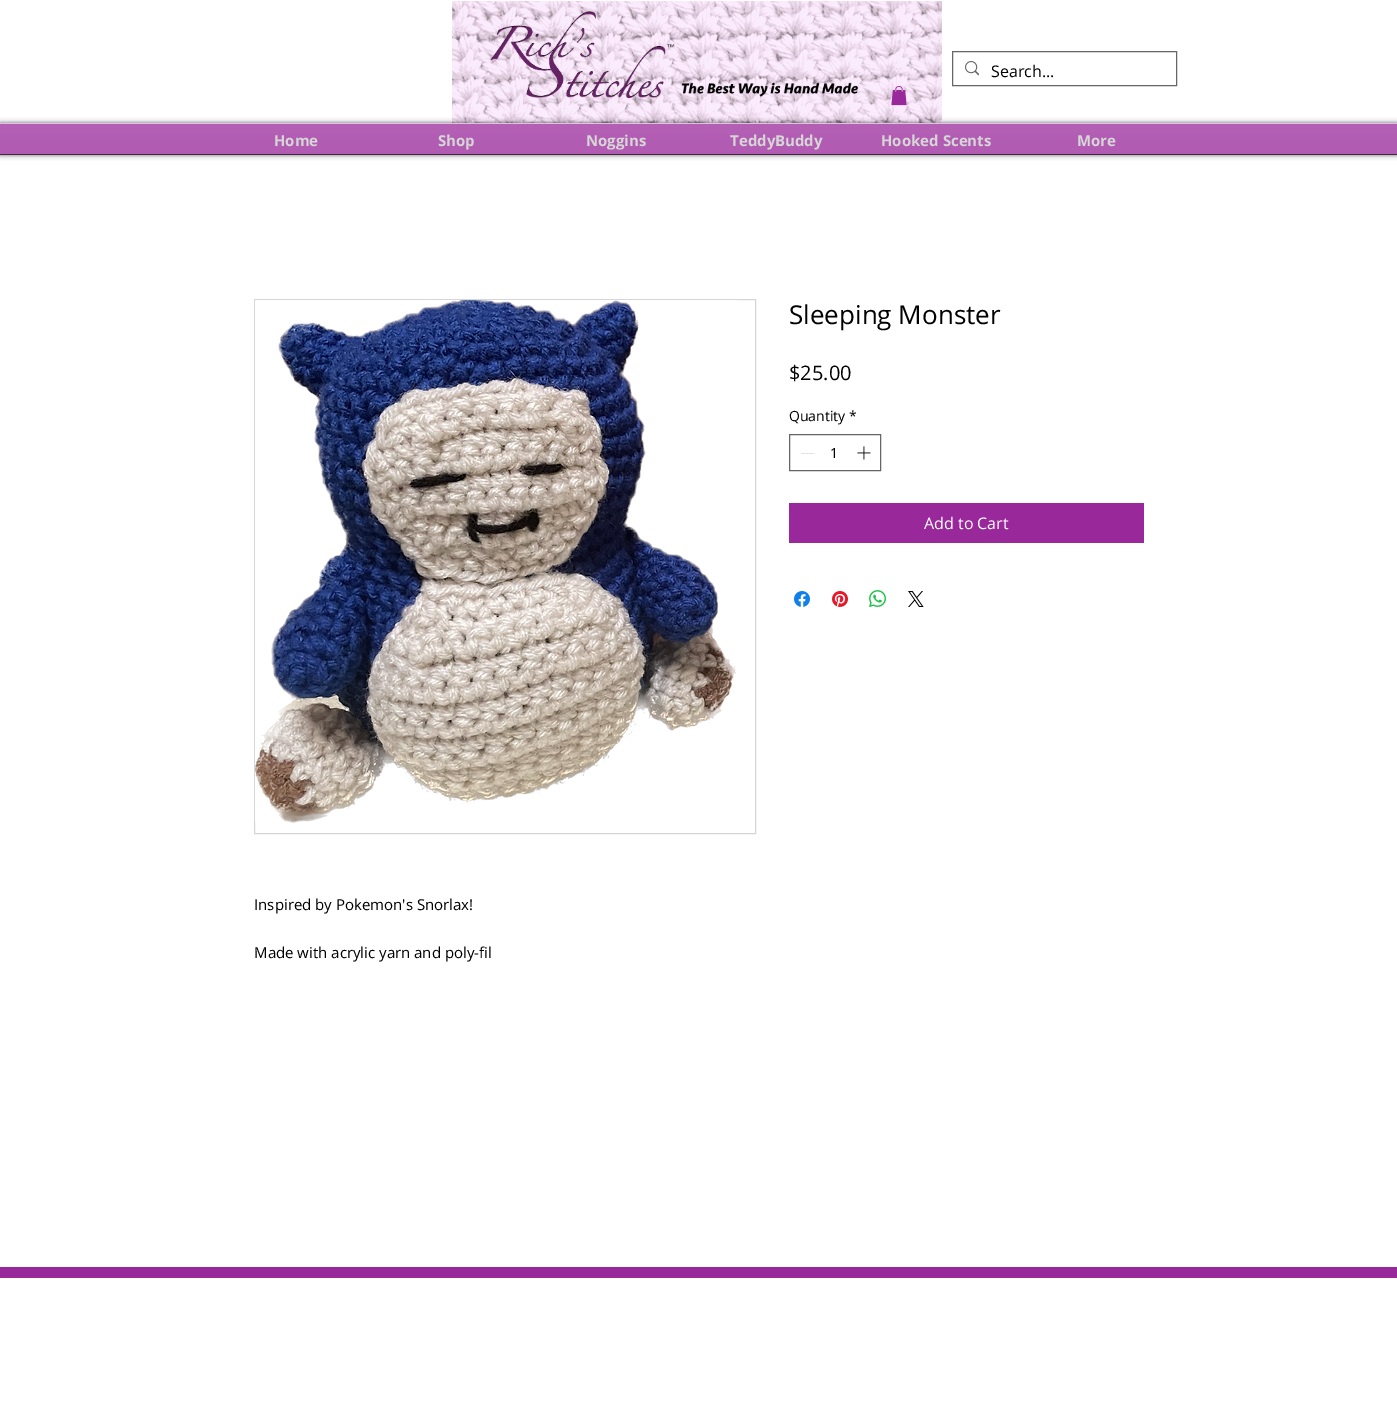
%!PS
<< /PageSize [1397 1414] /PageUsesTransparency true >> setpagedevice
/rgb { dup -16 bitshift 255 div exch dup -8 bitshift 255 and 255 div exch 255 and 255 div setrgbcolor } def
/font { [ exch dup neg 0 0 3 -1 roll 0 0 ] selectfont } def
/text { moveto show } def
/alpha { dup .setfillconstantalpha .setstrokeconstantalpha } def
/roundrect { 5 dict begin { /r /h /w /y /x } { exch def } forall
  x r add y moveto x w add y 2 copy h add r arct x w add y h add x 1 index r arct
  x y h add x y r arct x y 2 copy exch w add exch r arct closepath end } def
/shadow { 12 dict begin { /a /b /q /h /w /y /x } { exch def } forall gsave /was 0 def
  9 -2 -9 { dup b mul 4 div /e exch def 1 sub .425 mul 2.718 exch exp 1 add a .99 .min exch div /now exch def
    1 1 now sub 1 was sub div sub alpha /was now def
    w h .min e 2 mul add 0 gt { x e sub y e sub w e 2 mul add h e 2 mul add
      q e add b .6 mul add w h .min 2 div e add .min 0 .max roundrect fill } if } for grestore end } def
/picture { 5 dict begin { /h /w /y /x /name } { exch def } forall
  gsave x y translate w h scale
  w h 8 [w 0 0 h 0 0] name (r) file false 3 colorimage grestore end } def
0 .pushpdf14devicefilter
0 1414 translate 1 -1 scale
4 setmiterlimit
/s1 { /OpenSans-Regular 16 font 16#000000 rgb } def
/s2 { /OpenSans-Bold 15 font 16#D6D6D6 rgb } def
/s3 { /OpenSans-Regular 26 font 16#000000 rgb } def
/s4 { /OpenSans-Regular 20 font 16#000000 rgb } def
/s5 { /OpenSans-Regular 14 font 16#000000 rgb } def
/s6 { /OpenSans-Regular 16 font 16#FFFFFF rgb } def
/s7 { /OpenSans-Regular 15 font 16#000000 rgb } def
16#FFFFFF rgb
0 0 1397 1414 rectfill
(pic1.raw) 452 1 490 122 picture
(pic2.raw) 490 11 185 88 picture
16#666666 rgb
952.5 51.5 224 34 rectstroke
(pic3.raw) 965 61 14 15 picture
s1
(Search...) 991 77 text
(pic4.raw) 681 82 178 15 picture
(pic5.raw) 891 86 16 20 picture
0 123 1397 32 0 2.5 0.6 shadow
16#99299B rgb
0 124 1397 30 rectfill
(pic6.raw) 0 124 1397 30 picture
16#462447 rgb
0 154 1397 1 rectfill
16#E1C0E1 rgb
0 123 1397 1 rectfill
s2
(Home) 274 146 text
(Shop) 438 146 text
(Noggins) 586 146 text
(TeddyBuddy) 730 146 text
(Hooked Scents) 881 146 text
(More) 1077 146 text
s3
(Sleeping Monster) 789 324 text
s4
($25.00) 789 380 text
s5
(Quantity) 789 421 text
(*) 849 421 text
16#666666 rgb
789.5 434.5 91 36 rectstroke
16#E3E3E3 rgb
801 453 13 1 rectfill
s5
(1) 830 458 text
(pic7.raw) 857 446 14 14 picture
16#99299B rgb
789 503 355 40 rectfill
s6
(Add to Cart) 924 529 text
(pic8.raw) 794 591 16 16 picture
(pic9.raw) 832 591 16 16 picture
(pic10.raw) 869 590 17 17 picture
(pic11.raw) 908 591 16 16 picture
16#D6D6D6 rgb
254.5 299.5 501 534 rectstroke
(pic12.raw) 255 300 482 523 picture
s7
(Inspired by Pokemon's Snorlax!) 254 910 text
(Made with acrylic yarn and poly-fil) 254 958 text
16#99299B rgb
0 1267 1397 11 rectfill
.poppdf14devicefilter showpage
